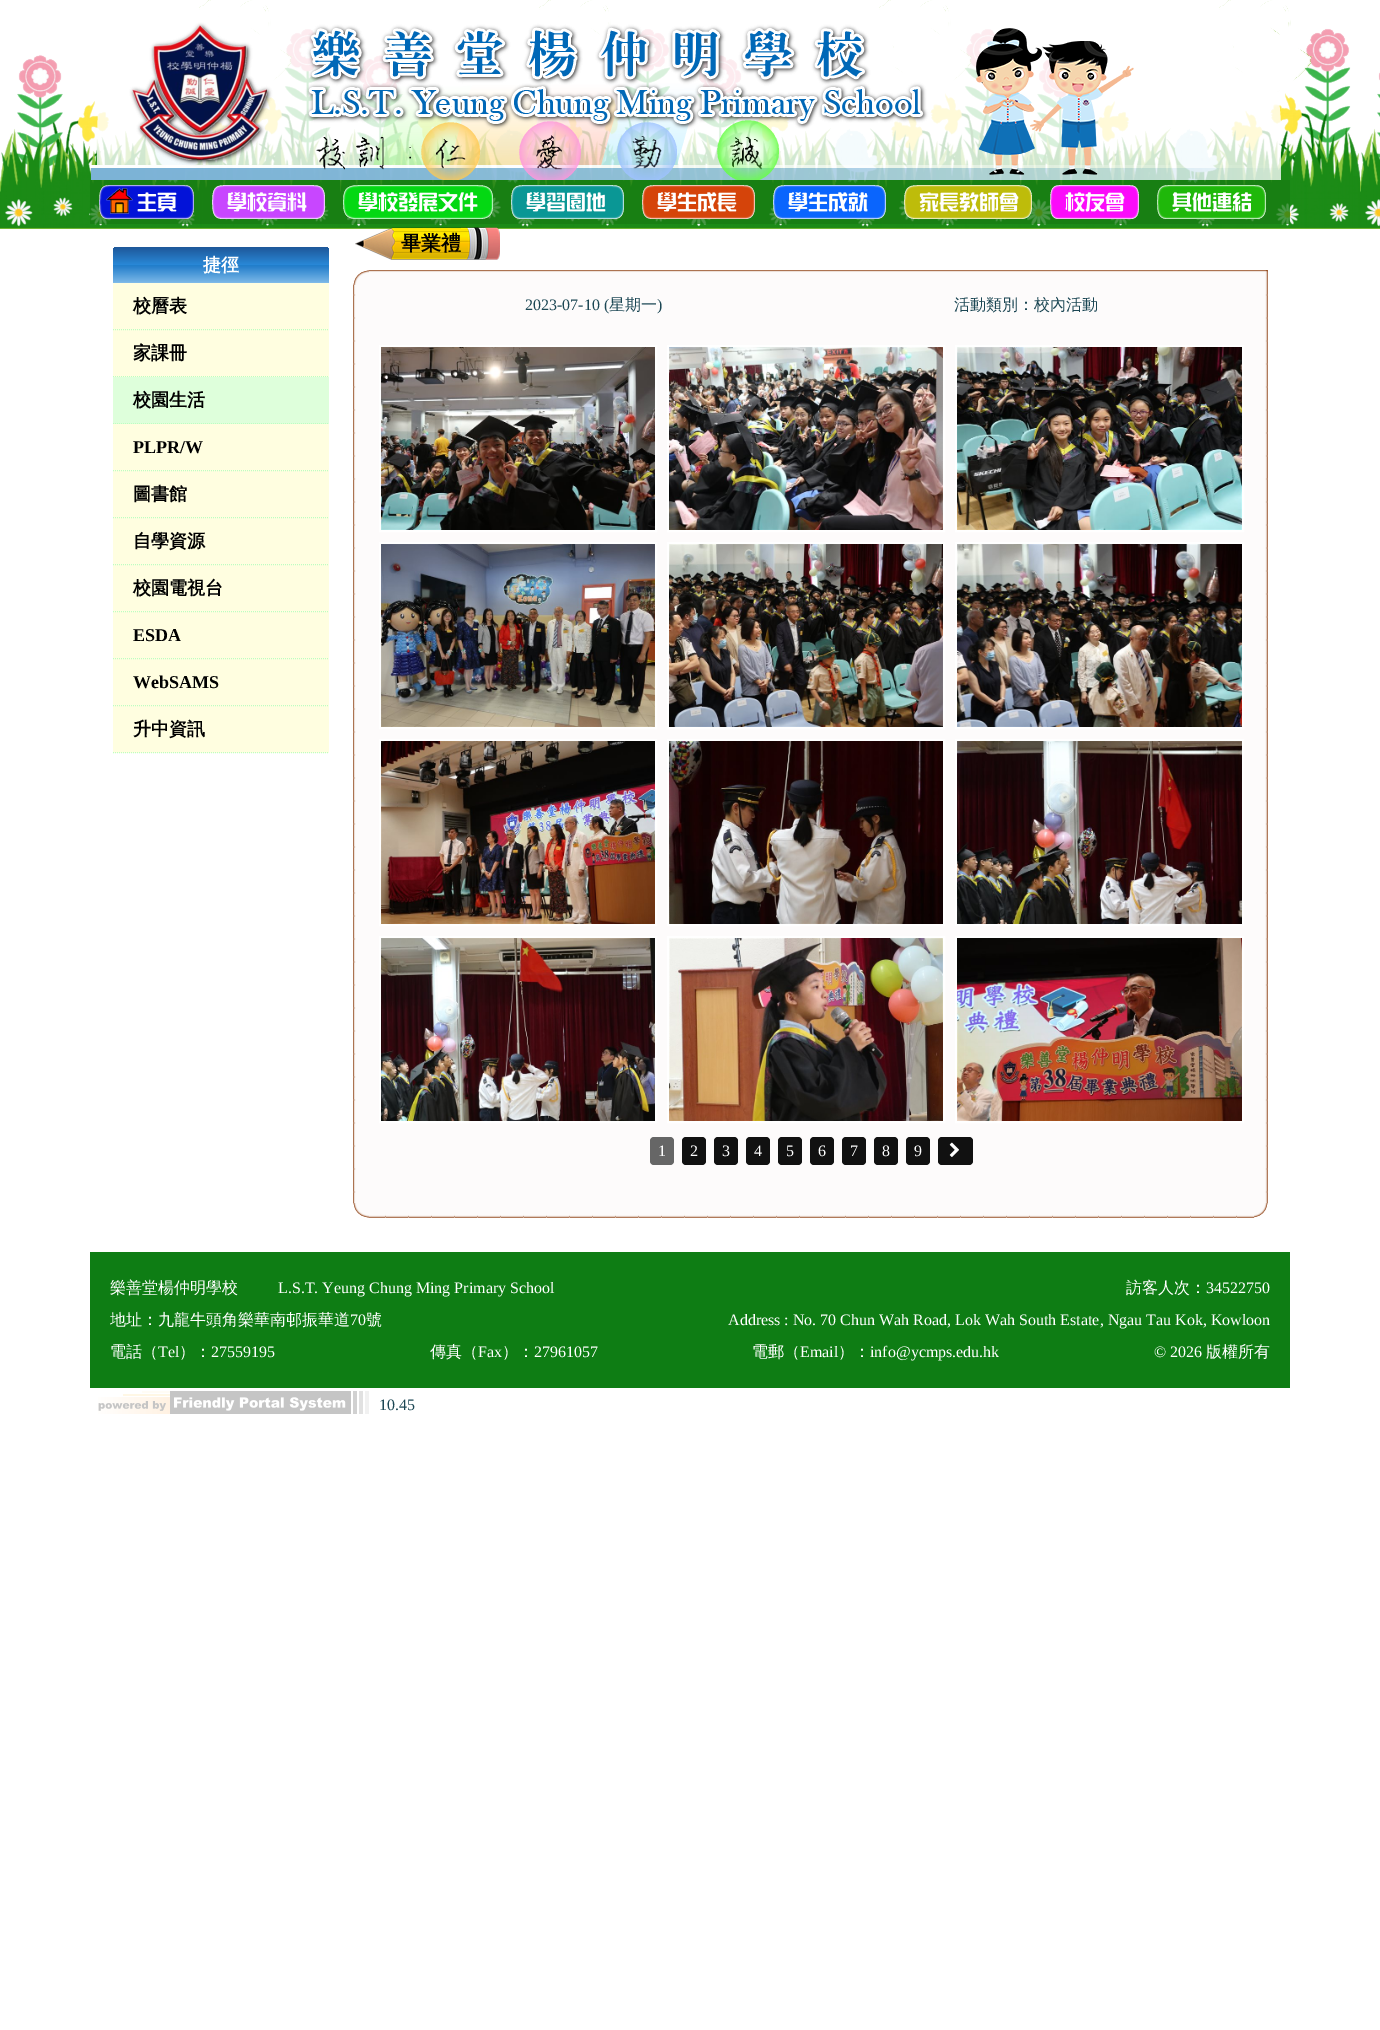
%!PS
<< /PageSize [1380 2030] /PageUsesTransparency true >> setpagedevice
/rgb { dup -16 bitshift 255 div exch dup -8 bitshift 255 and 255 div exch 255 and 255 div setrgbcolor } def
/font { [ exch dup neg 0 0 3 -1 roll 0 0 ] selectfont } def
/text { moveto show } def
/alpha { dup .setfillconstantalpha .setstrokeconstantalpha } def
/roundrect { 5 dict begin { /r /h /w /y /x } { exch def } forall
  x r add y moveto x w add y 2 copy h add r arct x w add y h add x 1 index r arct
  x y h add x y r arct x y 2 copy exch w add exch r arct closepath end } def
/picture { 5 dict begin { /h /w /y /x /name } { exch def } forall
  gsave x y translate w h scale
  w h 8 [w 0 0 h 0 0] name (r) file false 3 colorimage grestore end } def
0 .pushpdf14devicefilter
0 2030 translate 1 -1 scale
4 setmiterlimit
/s1 { /WenQuanYiZenHei-Bold 18 font 16#FFFFFF rgb } def
/s2 { /WenQuanYiZenHei-Bold 18 font 16#000000 rgb } def
/s3 { /LiberationSerif-Bold 18 font 16#000000 rgb } def
/s4 { /WenQuanYiZenHei-Bold 20 font 16#000000 rgb } def
/s5 { /LiberationSerif-Regular 16 font 16#1C4754 rgb } def
/s6 { /WenQuanYiZenHei-Medium 16 font 16#1C4754 rgb } def
/s7 { /LiberationSerif-Regular 16 font 16#FFFFFF rgb } def
/s8 { /WenQuanYiZenHei-Medium 16 font 16#FFFFFF rgb } def
16#FFFFFF rgb
0 0 1380 2030 rectfill
(pic1.raw) 0 0 1380 229 picture
(pic2.raw) 90 20 1191 160 picture
(pic3.raw) 976 28 158 147 picture
0.78 alpha
16#177C12 rgb
90 180 1200 44 rectfill
1 alpha
(pic4.raw) 99 185 95 34 picture
(pic5.raw) 212 185 113 34 picture
(pic6.raw) 343 185 150 34 picture
(pic7.raw) 511 185 113 34 picture
(pic8.raw) 642 185 113 34 picture
(pic9.raw) 773 185 113 34 picture
(pic10.raw) 904 185 128 34 picture
(pic11.raw) 1050 185 89 34 picture
(pic12.raw) 1157 185 109 34 picture
gsave 118 247 moveto 324 247 lineto 327 247 329 249 329 252 curveto 329 283 lineto 113 283 lineto 113 252 lineto 113 249 115 247 118 247 curveto closepath clip newpath
<< /ShadingType 2 /ColorSpace /DeviceRGB /Coords [221 247 221 283] /Extend [true true] /Function << /FunctionType 3 /Domain [0 1] /Functions [<< /FunctionType 2 /Domain [0 1] /C0 [0.118 0.341 0.6] /C1 [0.161 0.537 0.847] /N 1 >> << /FunctionType 2 /Domain [0 1] /C0 [0.161 0.537 0.847] /C1 [0.125 0.486 0.792] /N 1 >> << /FunctionType 2 /Domain [0 1] /C0 [0.125 0.486 0.792] /C1 [0.49 0.725 0.91] /N 1 >>] /Bounds [0.5 0.51] /Encode [0 1 0 1 0 1] >> >> shfill grestore
s1
(捷徑) 203 271 text
16#FFFEE0 rgb
113 283 216 94 rectfill
16#BDFFC1 rgb
[1 1] 0 setdash
113 329.5 moveto 329 329.5 lineto stroke
s2
(校曆表) 133 312 text
16#BDFFC1 rgb
113 376.5 moveto 329 376.5 lineto stroke
s2
(家課冊) 133 359 text
16#DEFFDB rgb
113 377 216 47 rectfill
16#BDFFC1 rgb
113 423.5 moveto 329 423.5 lineto stroke
s2
(校園生活) 133 406 text
16#FFFEE0 rgb
113 424 216 329 rectfill
16#BDFFC1 rgb
113 470.5 moveto 329 470.5 lineto stroke
s3
(PLPR/W) 133 453 text
16#BDFFC1 rgb
113 517.5 moveto 329 517.5 lineto stroke
s2
(圖書館) 133 500 text
16#BDFFC1 rgb
113 564.5 moveto 329 564.5 lineto stroke
s2
(自學資源) 133 547 text
16#BDFFC1 rgb
113 611.5 moveto 329 611.5 lineto stroke
s2
(校園電視台) 133 594 text
16#BDFFC1 rgb
113 658.5 moveto 329 658.5 lineto stroke
s3
(ESDA) 133 641 text
16#BDFFC1 rgb
113 705.5 moveto 329 705.5 lineto stroke
s3
(WebSAMS) 133 688 text
16#BDFFC1 rgb
113 752.5 moveto 329 752.5 lineto stroke
s2
(升中資訊) 133 735 text
(pic13.raw) 355 227 46 33 picture
(pic14.raw) 401 227 60 33 picture
s4
(畢業禮) 401 250 text
(pic15.raw) 461 227 39 33 picture
(pic16.raw) 353 270 915 948 picture
s5
(2023-07-10 \() 525 310 text
s6
(星期一) 609 310 text
s5
(\)) 657 310 text
s6
(活動類別：校內活動) 954 310 text
16#FFFFFF rgb
2 setlinewidth
[] 0 setdash
380 346 276 185 rectstroke
(pic17.raw) 381 347 274 183 picture
668 346 276 185 rectstroke
(pic18.raw) 669 347 274 183 picture
956 346 287 185 rectstroke
(pic19.raw) 957 347 285 183 picture
380 543 276 185 rectstroke
(pic20.raw) 381 544 274 183 picture
668 543 276 185 rectstroke
(pic21.raw) 669 544 274 183 picture
956 543 287 185 rectstroke
(pic22.raw) 957 544 285 183 picture
380 740 276 185 rectstroke
(pic23.raw) 381 741 274 183 picture
668 740 276 185 rectstroke
(pic24.raw) 669 741 274 183 picture
956 740 287 185 rectstroke
(pic25.raw) 957 741 285 183 picture
380 937 276 185 rectstroke
(pic26.raw) 381 938 274 183 picture
668 937 276 185 rectstroke
(pic27.raw) 669 938 274 183 picture
956 937 287 185 rectstroke
(pic28.raw) 957 938 285 183 picture
16#666666 rgb
650 1137 24 28 4 roundrect fill
s7
(1) 658 1156 text
16#111111 rgb
682 1137 24 28 4 roundrect fill
s7
(2) 690 1156 text
16#111111 rgb
714 1137 24 28 4 roundrect fill
s7
(3) 722 1156 text
16#111111 rgb
746 1137 24 28 4 roundrect fill
s7
(4) 754 1156 text
16#111111 rgb
778 1137 24 28 4 roundrect fill
s7
(5) 786 1156 text
16#111111 rgb
810 1137 24 28 4 roundrect fill
s7
(6) 818 1156 text
16#111111 rgb
842 1137 24 28 4 roundrect fill
s7
(7) 850 1156 text
16#111111 rgb
874 1137 24 28 4 roundrect fill
s7
(8) 882 1156 text
16#111111 rgb
906 1137 24 28 4 roundrect fill
s7
(9) 914 1156 text
16#111111 rgb
938 1137 35 28 4 roundrect fill
(pic29.raw) 949 1142 10 15 picture
16#0E7D14 rgb
90 1252 1200 136 rectfill
s8
(樂善堂楊仲明學校) 110 1293 text
s7
(L.S.T. Yeung Chung Ming Primary School) 278 1293 text
s8
(訪客人次：) 1126 1293 text
s7
(34522750) 1206 1293 text
s8
(地址：九龍牛頭角樂華南邨振華道) 110 1325 text
s7
(70) 350 1325 text
s8
(號) 366 1325 text
s7
(Address : No. 70 Chun Wah Road, Lok Wah South Estate, Ngau Tau Kok, Kowloon) 728 1325 text
s8
(電話（) 110 1357 text
s7
(Tel) 158 1357 text
s8
(）：) 179 1357 text
s7
(27559195) 211 1357 text
s8
(傳真（) 430 1357 text
s7
(Fax) 478 1357 text
s8
(）：) 502 1357 text
s7
(27961057) 534 1357 text
s8
(電郵（) 752 1357 text
s7
(Email) 800 1357 text
s8
(）：) 838 1357 text
s7
(info@ycmps.edu.hk) 870 1357 text
(© 2026) 1154 1357 text
s8
(版權所有) 1206 1357 text
(pic30.raw) 98 1391 271 23 picture
s5
(10.45) 379 1410 text
.poppdf14devicefilter showpage
